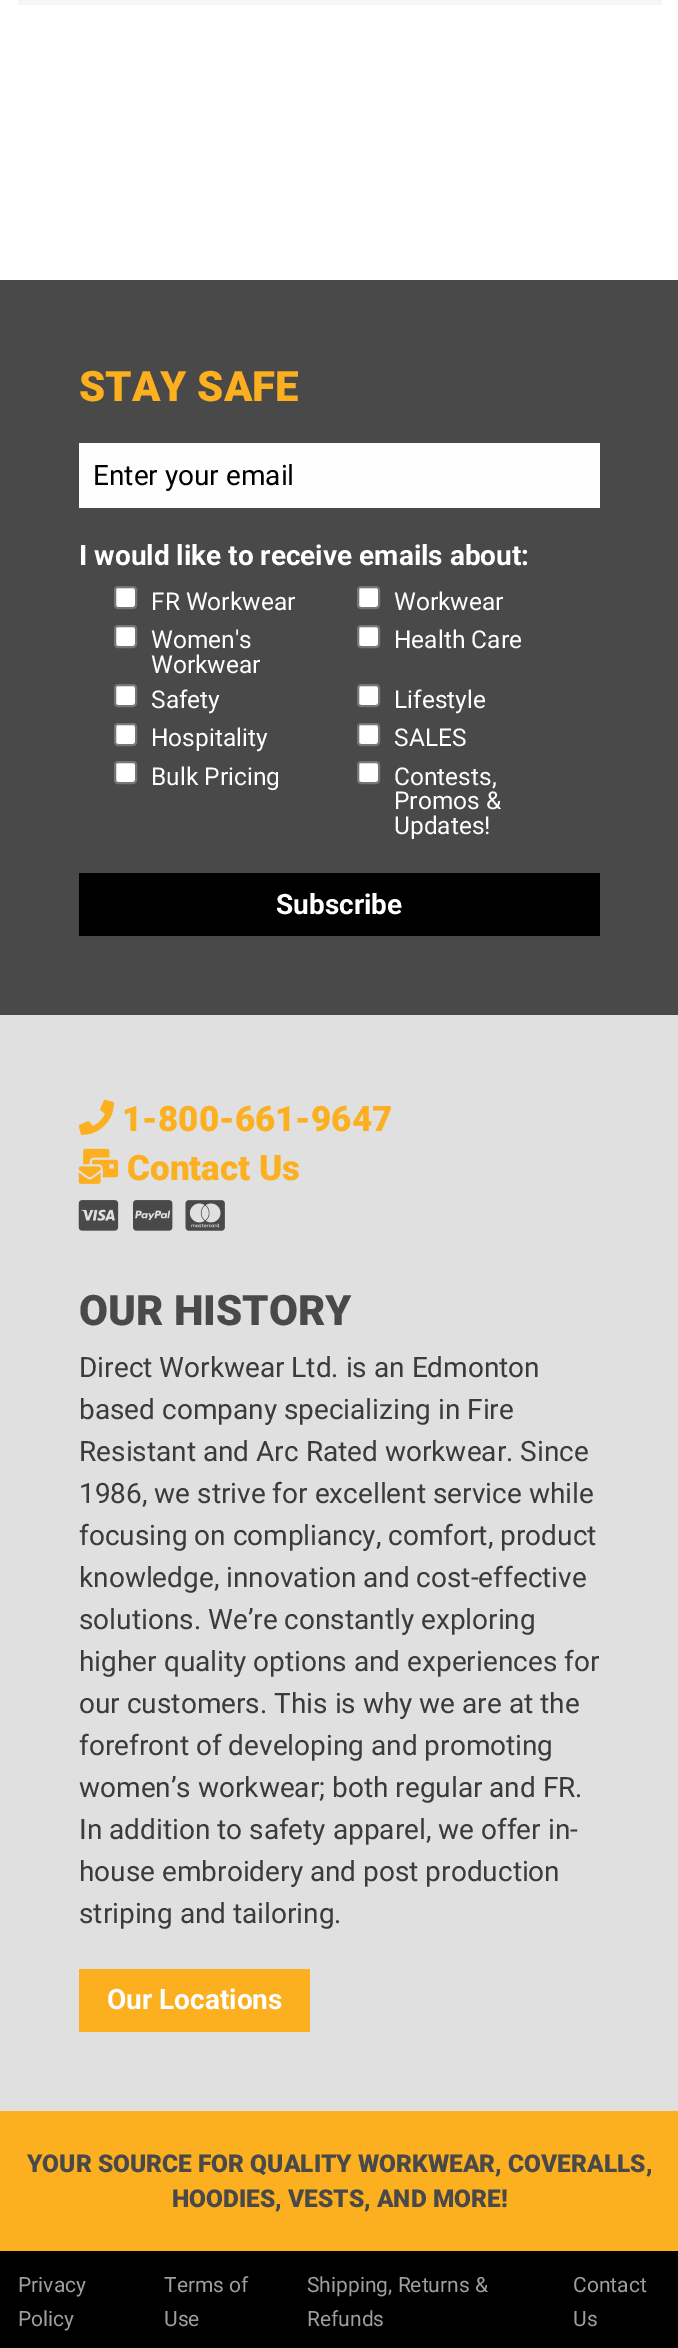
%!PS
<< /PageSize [678 2348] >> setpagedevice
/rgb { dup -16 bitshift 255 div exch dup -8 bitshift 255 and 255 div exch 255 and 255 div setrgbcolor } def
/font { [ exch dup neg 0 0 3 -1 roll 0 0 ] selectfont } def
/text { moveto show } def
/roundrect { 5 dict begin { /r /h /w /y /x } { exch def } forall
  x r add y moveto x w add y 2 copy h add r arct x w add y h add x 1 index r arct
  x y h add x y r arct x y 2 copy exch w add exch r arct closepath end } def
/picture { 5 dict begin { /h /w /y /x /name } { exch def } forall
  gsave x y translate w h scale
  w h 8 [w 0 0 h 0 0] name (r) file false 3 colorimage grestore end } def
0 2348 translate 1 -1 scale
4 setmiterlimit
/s1 { /Roboto-Black 42 font 16#FCAF1F rgb } def
/s2 { /Roboto-Regular 28 font 16#000000 rgb } def
/s3 { /Roboto-Bold 28 font 16#FFFFFF rgb } def
/s4 { /Roboto-Regular 24.5 font 16#FFFFFF rgb } def
/s5 { /Roboto-Black 35 font 16#FCAF1F rgb } def
/s6 { /Roboto-Black 42 font 16#494949 rgb } def
/s7 { /Roboto-Regular 28 font 16#3B3B3B rgb } def
/s8 { /Roboto-Black 24.5 font 16#494949 rgb } def
/s9 { /Roboto-Regular 21 font 16#9E9E9E rgb } def
16#FFFFFF rgb
0 0 678 2348 rectfill
16#F6F5F8 rgb
18 0 644 5 rectfill
16#FCAF1F rgb
0 2111 678 140 rectfill
16#494949 rgb
0 280 678 735 rectfill
s1
(STAY SAFE) 79 401 text
16#FEFEFE rgb
79 443 521 65 rectfill
s2
(Enter your email) 93 485 text
s3
(I would like to receive emails about:) 79 565 text
115 587 21 21 3 roundrect gsave fill grestore
16#767676 rgb
2 setlinewidth
stroke
s4
(FR Workwear) 151 610 text
358 587 21 21 3 roundrect gsave fill grestore
16#767676 rgb
stroke
s4
(Workwear) 394 610 text
115 626 21 21 3 roundrect gsave fill grestore
16#767676 rgb
stroke
s4
(Women's) 151 648 text
(Workwear) 151 673 text
358 626 21 21 3 roundrect gsave fill grestore
16#767676 rgb
stroke
s4
(Health Care) 394 648 text
115 685 21 21 3 roundrect gsave fill grestore
16#767676 rgb
stroke
s4
(Safety) 151 708 text
358 685 21 21 3 roundrect gsave fill grestore
16#767676 rgb
stroke
s4
(Lifestyle) 394 708 text
115 724 21 21 3 roundrect gsave fill grestore
16#767676 rgb
stroke
s4
(Hospitality) 151 746 text
358 724 21 21 3 roundrect gsave fill grestore
16#767676 rgb
stroke
s4
(SALES) 394 746 text
115 762 21 21 3 roundrect gsave fill grestore
16#767676 rgb
stroke
s4
(Bulk Pricing) 151 785 text
358 762 21 21 3 roundrect gsave fill grestore
16#767676 rgb
stroke
s4
(Contests,) 394 785 text
(Promos &) 394 809 text
(Updates!) 394 834 text
16#000000 rgb
79 873 521 63 rectfill
s3
(Subscribe) 276 914 text
16#E0E0E0 rgb
0 1015 678 1096 rectfill
(pic1.raw) 78 1099 36 36 picture
s5
(1-800-661-9647) 122 1131 text
(pic2.raw) 78 1148 41 36 picture
(Contact Us) 127 1180 text
(pic3.raw) 78 1200 41 31 picture
(pic4.raw) 133 1200 40 31 picture
(pic5.raw) 185 1200 40 31 picture
s6
(OUR HISTORY) 79 1325 text
s7
(Direct Workwear Ltd. is an Edmonton) 79 1377 text
(based company specializing in Fire) 79 1419 text
(Resistant and Arc Rated workwear. Since) 79 1461 text
(1986, we strive for excellent service while) 79 1503 text
(focusing on compliancy, comfort, product) 79 1545 text
(knowledge, innovation and cost-effective) 79 1587 text
(solutions. We’re constantly exploring) 79 1629 text
(higher quality options and experiences for) 79 1671 text
(our customers. This is why we are at the) 79 1713 text
(forefront of developing and promoting) 79 1755 text
(women’s workwear; both regular and FR.) 79 1797 text
(In addition to safety apparel, we offer in-) 79 1839 text
(house embroidery and post production) 79 1881 text
(striping and tailoring.) 79 1923 text
16#FCAF1F rgb
79 1969 231 63 rectfill
s3
(Our Locations) 107 2009 text
s8
(YOUR SOURCE FOR QUALITY WORKWEAR, COVERALLS,) 27 2172 text
(HOODIES, VESTS, AND MORE!) 172 2207 text
16#000000 rgb
0 2251 678 97 rectfill
s9
(Privacy) 18 2292 text
(Policy) 18 2326 text
(Terms of) 164 2292 text
(Use) 164 2326 text
(Shipping, Returns &) 307 2292 text
(Refunds) 307 2326 text
(Contact) 573 2292 text
(Us) 573 2326 text
showpage
